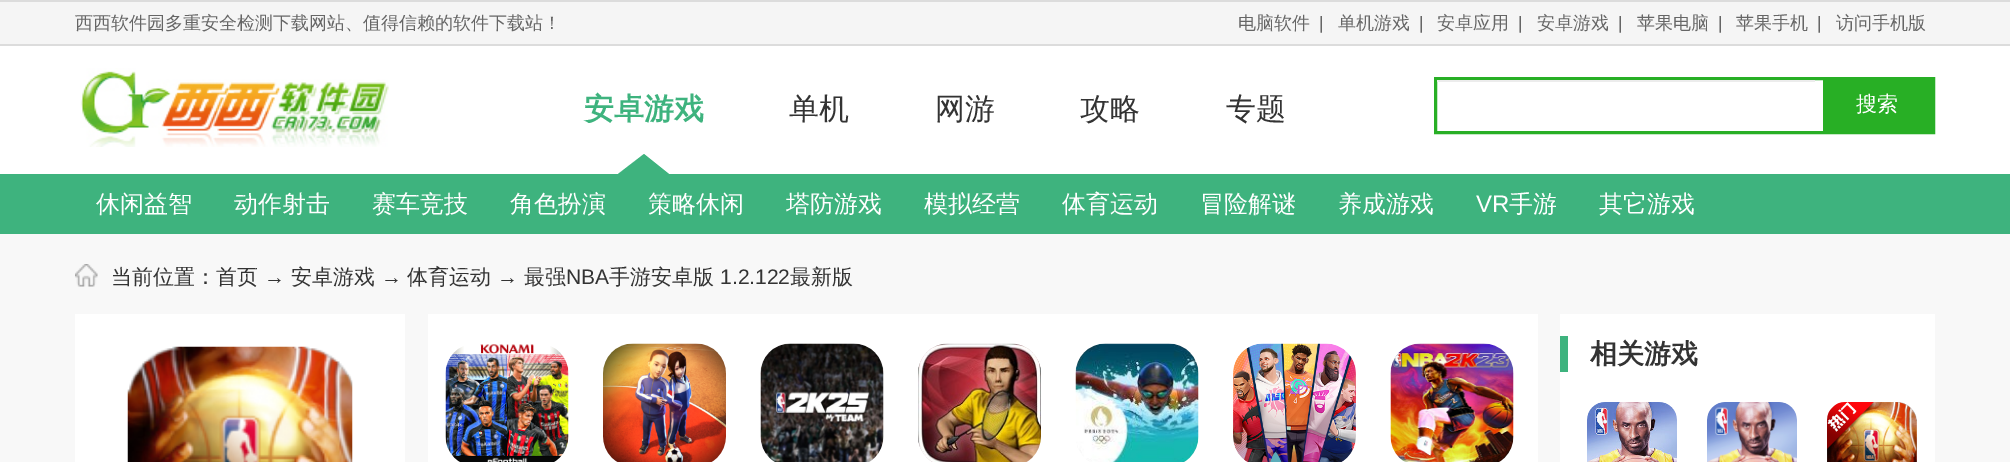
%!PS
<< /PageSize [2010 462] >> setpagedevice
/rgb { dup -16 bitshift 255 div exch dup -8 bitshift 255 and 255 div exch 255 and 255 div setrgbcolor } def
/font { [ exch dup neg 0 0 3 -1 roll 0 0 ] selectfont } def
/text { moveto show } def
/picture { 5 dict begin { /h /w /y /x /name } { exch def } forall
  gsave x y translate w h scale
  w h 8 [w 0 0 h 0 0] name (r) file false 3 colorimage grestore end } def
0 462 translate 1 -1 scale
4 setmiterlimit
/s1 { /WenQuanYiZenHei-Medium 18 font 16#666666 rgb } def
/s2 { /LiberationSans-Regular 18 font 16#666666 rgb } def
/s3 { /WenQuanYiZenHei-Bold 30 font 16#3EB37E rgb } def
/s4 { /WenQuanYiZenHei-Medium 30 font 16#333333 rgb } def
/s5 { /WenQuanYiZenHei-Medium 21 font 16#FFFFFF rgb } def
/s6 { /WenQuanYiZenHei-Medium 24 font 16#FFFFFF rgb } def
/s7 { /LiberationSans-Regular 24 font 16#FFFFFF rgb } def
/s8 { /WenQuanYiZenHei-Medium 21 font 16#333333 rgb } def
/s9 { /LiberationSans-Regular 21 font 16#333333 rgb } def
/s10 { /WenQuanYiZenHei-Bold 27 font 16#333333 rgb } def
16#F8F8F8 rgb
0 0 2010 462 rectfill
16#F5F5F5 rgb
0 2 2010 42 rectfill
16#DCDCDC rgb
0 0 2010 2 rectfill
0 44 2010 2 rectfill
s1
(西西软件园多重安全检测下载网站、值得信赖的软件下载站！) 75 29 text
(电脑软件) 1238 29 text
s2
(|) 1319 29 text
s1
(单机游戏) 1338 29 text
s2
(|) 1419 29 text
s1
(安卓应用) 1437 29 text
s2
(|) 1518 29 text
s1
(安卓游戏) 1537 29 text
s2
(|) 1618 29 text
s1
(苹果电脑) 1637 29 text
s2
(|) 1718 29 text
s1
(苹果手机) 1736 29 text
s2
(|) 1817 29 text
s1
(访问手机版) 1836 29 text
16#FFFFFF rgb
0 46 2010 128 rectfill
(pic1.raw) 80 68 309 79 picture
s3
(安卓游戏) 584 119 text
669 174 moveto 618 174 lineto 644 154 lineto closepath fill
s4
(单机) 789 119 text
(网游) 935 119 text
(攻略) 1080 119 text
(专题) 1226 119 text
16#28AF25 rgb
3 setlinewidth
1435.5 78.5 498 54 rectstroke
16#ECECEC rgb
1437 80 378 2 rectfill
16#28AF25 rgb
1823 80 109 51 rectfill
s5
(搜索) 1856 111 text
16#3EB37E rgb
0 174 2010 60 rectfill
s6
(休闲益智) 96 212 text
(动作射击) 234 212 text
(赛车竞技) 372 212 text
(角色扮演) 510 212 text
(策略休闲) 648 212 text
(塔防游戏) 786 212 text
(模拟经营) 924 212 text
(体育运动) 1062 212 text
(冒险解谜) 1200 212 text
(养成游戏) 1338 212 text
s7
(VR) 1476 212 text
s6
(手游) 1509 212 text
(其它游戏) 1599 212 text
(pic2.raw) 75 264 23 23 picture
s8
(当前位置：首页) 111 284 text
s9
(→) 264 284 text
s8
(安卓游戏) 291 284 text
s9
(→) 381 284 text
s8
(体育运动) 407 284 text
s9
(→) 497 284 text
s8
(最强) 524 284 text
s9
(NBA) 566 284 text
s8
(手游安卓版) 609 284 text
s9
(1.2.122) 720 284 text
s8
(最新版) 790 284 text
16#FFFFFF rgb
75 314 330 148 rectfill
(pic3.raw) 127 346 226 116 picture
428 314 1110 148 rectfill
(pic4.raw) 445 344 124 118 picture
(pic5.raw) 603 343 123 119 picture
(pic6.raw) 760 343 124 119 picture
(pic7.raw) 918 343 123 119 picture
(pic8.raw) 1075 343 124 119 picture
(pic9.raw) 1233 343 123 119 picture
(pic10.raw) 1390 343 124 119 picture
1560 314 375 148 rectfill
16#3EB37E rgb
1560 336 8 36 rectfill
s10
(相关游戏) 1590 363 text
(pic11.raw) 1587 402 90 60 picture
(pic12.raw) 1707 402 90 60 picture
(pic13.raw) 1827 402 90 60 picture
showpage
